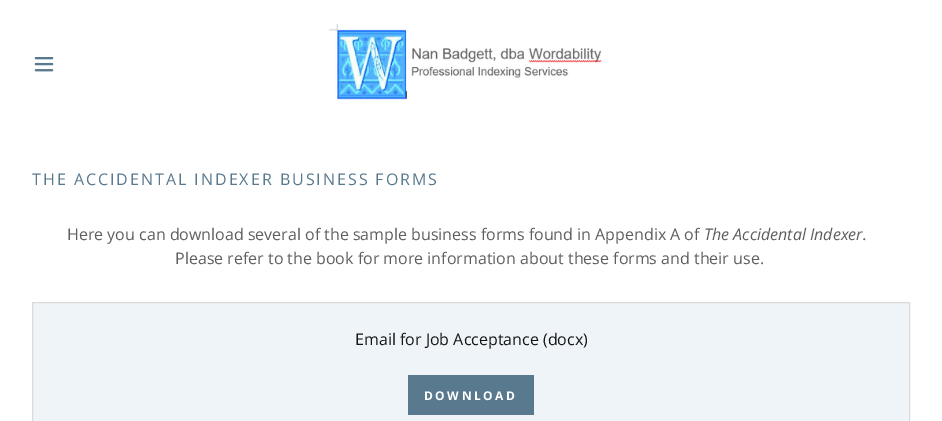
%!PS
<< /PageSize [942 421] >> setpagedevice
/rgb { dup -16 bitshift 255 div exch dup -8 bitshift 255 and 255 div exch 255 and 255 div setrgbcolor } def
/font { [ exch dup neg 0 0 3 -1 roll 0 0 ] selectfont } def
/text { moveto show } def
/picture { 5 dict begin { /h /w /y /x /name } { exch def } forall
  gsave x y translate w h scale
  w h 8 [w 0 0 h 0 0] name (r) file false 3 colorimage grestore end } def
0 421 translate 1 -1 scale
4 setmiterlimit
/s1 { /OpenSans-Regular 16 font 16#5E5E5E rgb } def
/s2 { /OpenSans-Italic 16 font 16#5E5E5E rgb } def
/s3 { /OpenSans-Regular 16 font 16#151515 rgb } def
16#FFFFFF rgb
0 0 942 421 rectfill
(pic1.raw) 34 57 20 15 picture
(pic2.raw) 329 24 273 76 picture
/OpenSans-Regular 16 font
16#59798E rgb
32 185 moveto 2 0 (THE ACCIDENTAL INDEXER BUSINESS FORMS) ashow
s1
(Here you can download several of the sample business forms found in Appendix A of) 67 240 text
s2
(The Accidental Indexer.) 704 240 text
s1
(Please refer to the book for more information about these forms and their use.) 175 264 text
16#EFF4F9 rgb
32.5 302.5 moveto 909.5 302.5 lineto 909.5 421.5 lineto 32.5 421.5 lineto closepath gsave fill grestore
16#DADADA rgb
stroke
s3
(Email for Job Acceptance \(docx\)) 355 345 text
16#59798E rgb
408 375 126 40 rectfill
/OpenSans-Bold 12 font
16#FFFFFF rgb
424 400 moveto 2.5 0 (DOWNLOAD) ashow
showpage
